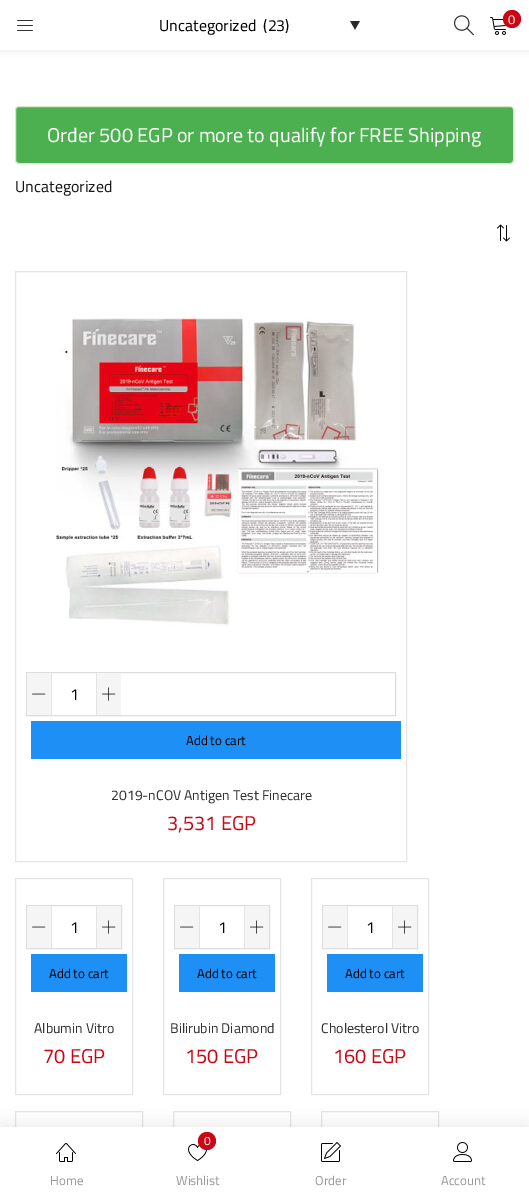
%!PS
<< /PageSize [529 1197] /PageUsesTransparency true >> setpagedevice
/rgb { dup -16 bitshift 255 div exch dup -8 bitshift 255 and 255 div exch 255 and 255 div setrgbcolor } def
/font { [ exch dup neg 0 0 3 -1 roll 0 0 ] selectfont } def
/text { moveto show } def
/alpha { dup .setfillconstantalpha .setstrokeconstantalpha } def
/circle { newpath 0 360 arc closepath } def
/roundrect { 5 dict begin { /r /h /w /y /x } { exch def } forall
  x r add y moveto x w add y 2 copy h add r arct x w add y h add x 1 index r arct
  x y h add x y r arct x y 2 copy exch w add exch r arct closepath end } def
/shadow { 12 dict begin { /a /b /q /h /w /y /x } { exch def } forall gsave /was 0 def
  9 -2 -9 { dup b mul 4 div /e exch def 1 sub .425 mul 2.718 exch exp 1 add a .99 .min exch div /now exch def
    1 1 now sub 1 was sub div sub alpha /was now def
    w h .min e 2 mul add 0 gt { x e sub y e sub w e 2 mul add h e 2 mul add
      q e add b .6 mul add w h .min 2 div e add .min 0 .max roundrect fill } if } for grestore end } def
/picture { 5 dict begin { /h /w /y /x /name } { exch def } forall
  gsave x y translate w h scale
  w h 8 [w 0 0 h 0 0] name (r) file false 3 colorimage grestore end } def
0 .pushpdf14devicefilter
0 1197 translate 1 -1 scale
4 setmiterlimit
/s1 { /Cairo-Regular 16 font 16#000000 rgb } def
/s2 { /Cairo-Regular 13 font 16#FFFFFF rgb } def
/s3 { /Cairo-Regular 20 font 16#FFFFFF rgb } def
/s4 { /Cairo-Regular 16 font 16#17181A rgb } def
/s5 { /Cairo-Regular 13 font 16#000000 rgb } def
/s6 { /Cairo-Regular 14 font 16#323232 rgb } def
/s7 { /Cairo-Regular 20 font 16#CA0815 rgb } def
/s8 { /Cairo-Regular 13 font 16#999999 rgb } def
/s9 { /Cairo-Regular 12 font 16#FFFFFF rgb } def
16#FFFFFF rgb
0 0 529 1197 rectfill
16#000000 rgb
0 0 529 50 0 4 0.1 shadow
16#FFFFFF rgb
0 0 529 50 rectfill
(pic1.raw) 17 20 16 11 picture
(pic2.raw) 350 21 10 9 picture
s1
(Uncategorized  \(23\)) 159 31 text
(pic3.raw) 454 15 20 21 picture
(pic4.raw) 490 17 16 18 picture
16#CA0815 rgb
512 19 9 circle fill
s2
(0) 508 24 text
16#4CAF50 rgb
15.5 106.5 498 57 3.5 roundrect gsave fill grestore
16#D6E9C6 rgb
stroke
s3
(Order 500 EGP or more to qualify for FREE Shipping) 47 142 text
s4
(Uncategorized) 15 192 text
(pic5.raw) 497 224 13 18 picture
16#E5E5E5 rgb
15.5 271.5 391 590 rectstroke
(pic6.raw) 56 312 328 314 picture
16#DDDDDD rgb
26.5 672.5 369 43 rectstroke
16#F5F5F5 rgb
27 673 24 42 rectfill
16#E5E5E5 rgb
51 673 1 42 rectfill
(pic7.raw) 32 693 14 2 picture
s1
(1) 70 700 text
16#F5F5F5 rgb
97 673 24 42 rectfill
16#E5E5E5 rgb
96 673 1 42 rectfill
(pic8.raw) 102 687 14 14 picture
16#1E8FF5 rgb
31 721 370 38 rectfill
s5
(Add to cart) 186 745 text
s6
(2019-nCOV Antigen Test Finecare) 111 800 text
s7
(3,531 EGP) 167 830 text
16#E5E5E5 rgb
15.5 878.5 117 216 rectstroke
16#DDDDDD rgb
26.5 905.5 95 43 rectstroke
16#F5F5F5 rgb
27 906 24 42 rectfill
16#E5E5E5 rgb
51 906 1 42 rectfill
(pic7.raw) 32 926 14 2 picture
s1
(1) 70 933 text
16#F5F5F5 rgb
97 906 24 42 rectfill
16#E5E5E5 rgb
96 906 1 42 rectfill
(pic8.raw) 102 920 14 14 picture
16#1E8FF5 rgb
31 954 96 38 rectfill
s5
(Add to cart) 49 978 text
s6
(Albumin Vitro) 34 1033 text
s7
(70 EGP) 43 1063 text
16#E5E5E5 rgb
163.5 878.5 117 216 rectstroke
16#DDDDDD rgb
174.5 905.5 95 43 rectstroke
16#F5F5F5 rgb
175 906 24 42 rectfill
16#E5E5E5 rgb
199 906 1 42 rectfill
(pic7.raw) 180 926 14 2 picture
s1
(1) 218 933 text
16#F5F5F5 rgb
245 906 24 42 rectfill
16#E5E5E5 rgb
244 906 1 42 rectfill
(pic8.raw) 250 920 14 14 picture
16#1E8FF5 rgb
179 954 96 38 rectfill
s5
(Add to cart) 197 978 text
s6
(Bilirubin Diamond) 170 1033 text
s7
(150 EGP) 185 1063 text
16#E5E5E5 rgb
311.5 878.5 117 216 rectstroke
16#DDDDDD rgb
322.5 905.5 95 43 rectstroke
16#F5F5F5 rgb
323 906 24 42 rectfill
16#E5E5E5 rgb
347 906 1 42 rectfill
(pic7.raw) 328 926 14 2 picture
s1
(1) 366 933 text
16#F5F5F5 rgb
393 906 24 42 rectfill
16#E5E5E5 rgb
392 906 1 42 rectfill
(pic8.raw) 398 920 14 14 picture
16#1E8FF5 rgb
327 954 96 38 rectfill
s5
(Add to cart) 345 978 text
s6
(Cholesterol Vitro) 321 1033 text
s7
(160 EGP) 333 1063 text
16#E5E5E5 rgb
15.5 1111.5 127 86 rectstroke
173.5 1111.5 117 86 rectstroke
321.5 1111.5 117 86 rectstroke
16#000000 rgb
0 1127 529 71 0 10 0.1 shadow
16#FFFFFF rgb
0 1127 529 70 rectfill
(pic9.raw) 56 1143 20 19 picture
s8
(Home) 50 1185 text
(pic10.raw) 188 1144 19 17 picture
16#CA0815 rgb
207 1141 9 circle fill
s9
(0) 204 1145 text
s8
(Wishlist) 176 1185 text
(pic11.raw) 321 1142 20 20 picture
(Order) 315 1185 text
(pic12.raw) 453 1142 19 20 picture
(Account) 441 1185 text
.poppdf14devicefilter showpage
